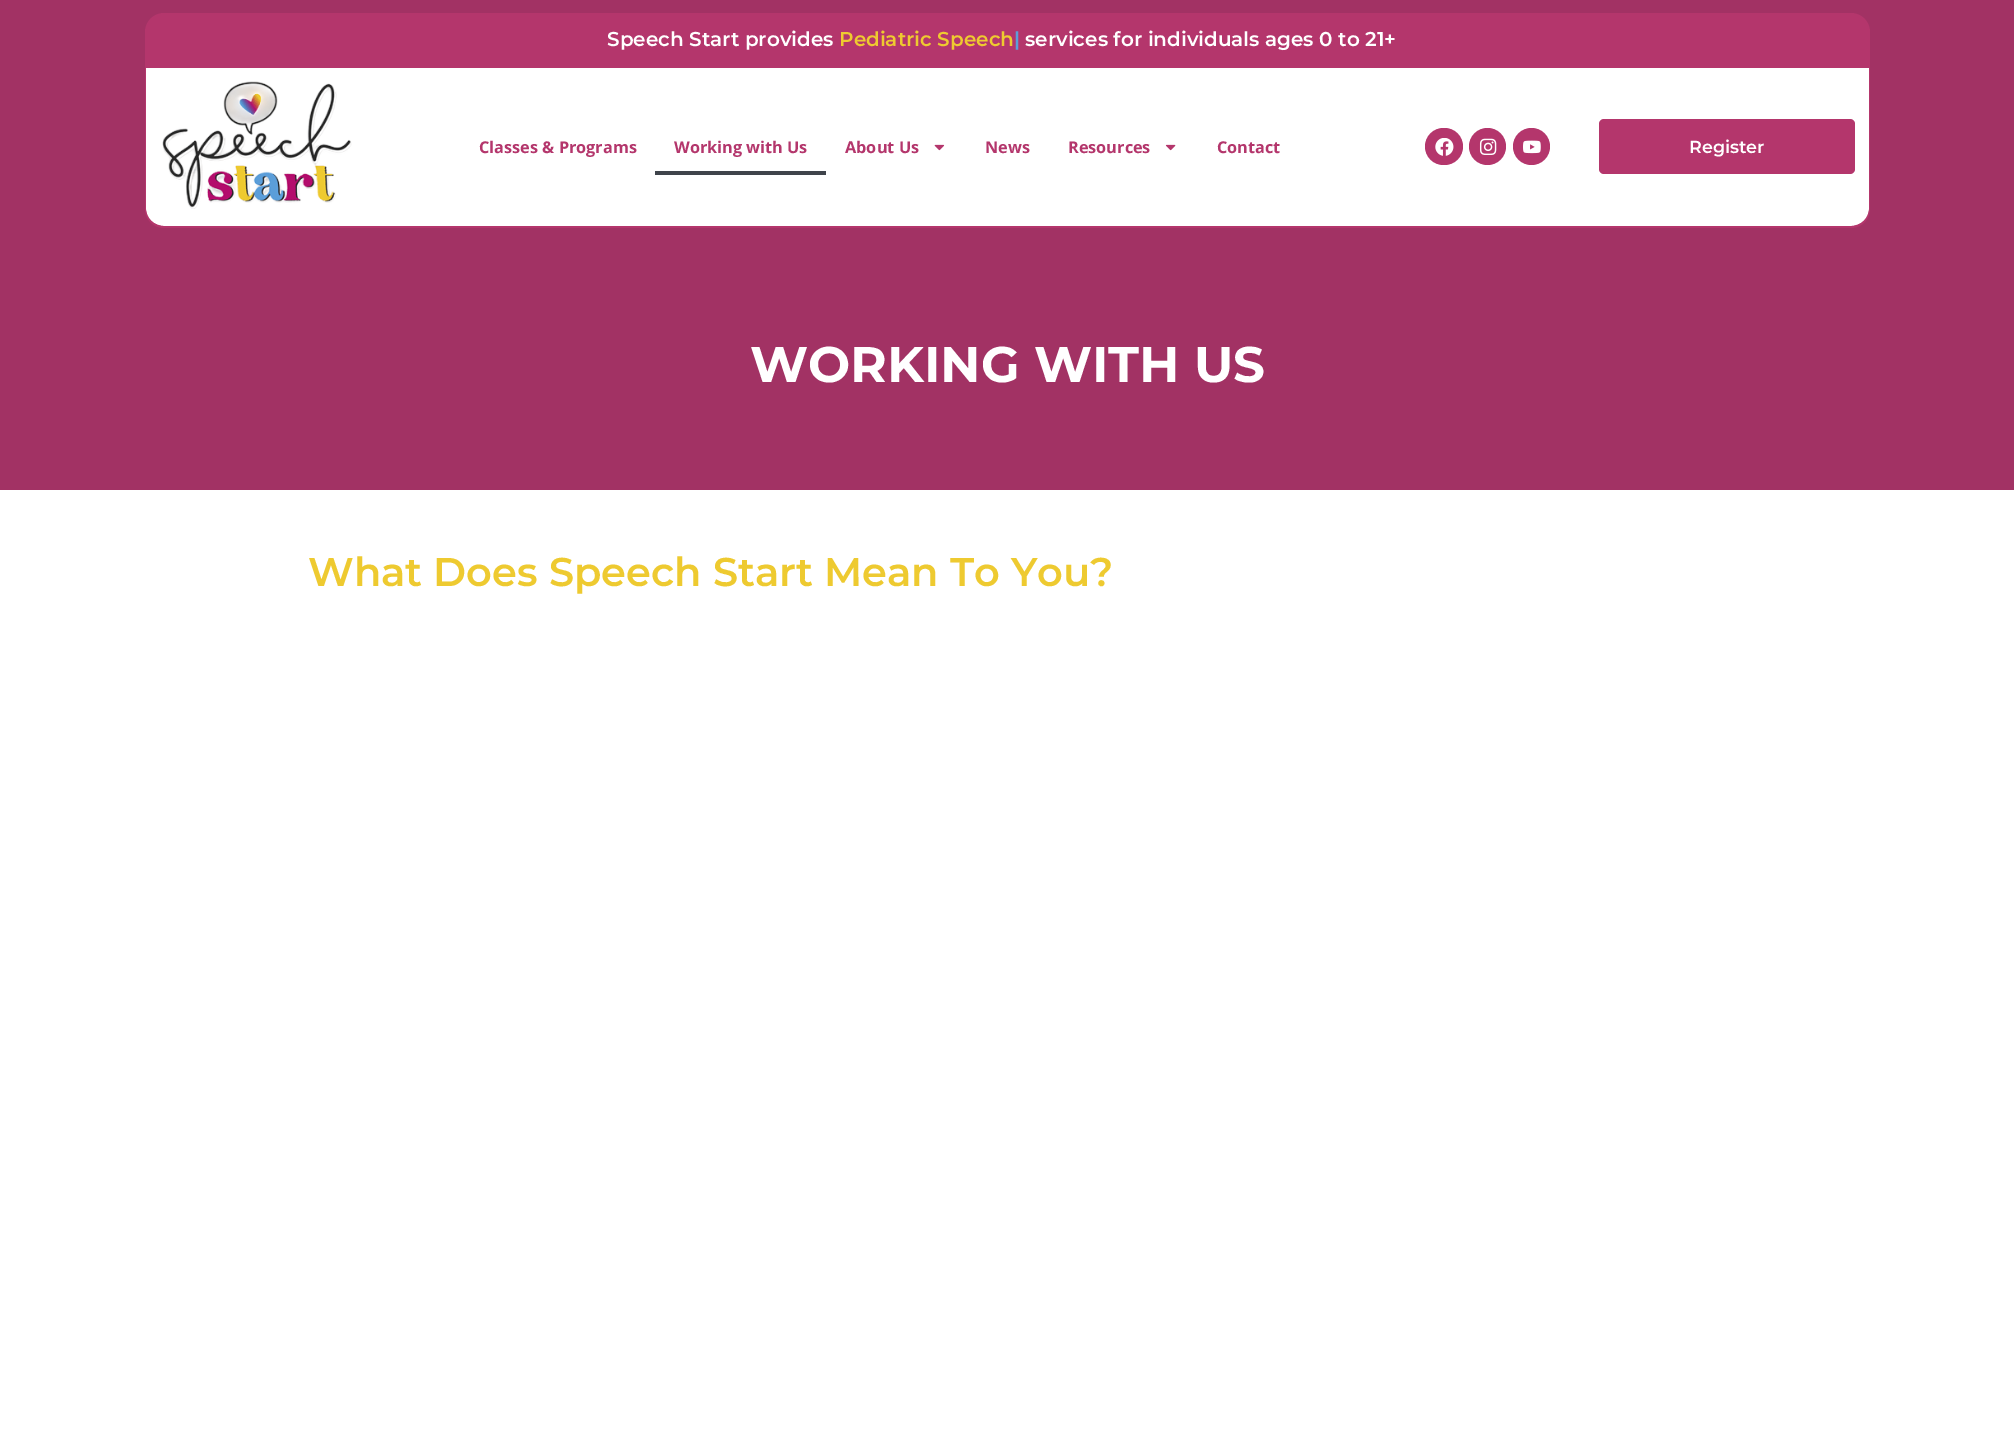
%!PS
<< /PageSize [2014 1440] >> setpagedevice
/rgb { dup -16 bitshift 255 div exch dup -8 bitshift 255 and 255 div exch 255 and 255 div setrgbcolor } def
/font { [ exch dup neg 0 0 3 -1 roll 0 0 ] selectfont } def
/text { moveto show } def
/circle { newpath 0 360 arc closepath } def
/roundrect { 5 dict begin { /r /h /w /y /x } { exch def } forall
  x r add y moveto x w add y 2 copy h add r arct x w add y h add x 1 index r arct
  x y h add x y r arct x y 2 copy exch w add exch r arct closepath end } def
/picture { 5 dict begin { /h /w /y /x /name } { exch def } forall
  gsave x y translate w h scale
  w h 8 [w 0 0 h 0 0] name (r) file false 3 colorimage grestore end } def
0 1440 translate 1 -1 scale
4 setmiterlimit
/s1 { /Montserrat-SemiBold 20 font 16#FFFFFF rgb } def
/s2 { /Montserrat-SemiBold 20 font 16#EECA30 rgb } def
/s3 { /Montserrat-SemiBold 20 font 16#5B9ED9 rgb } def
/s4 { /OpenSans-Bold 16.25 font 16#B4366C rgb } def
/s5 { /Montserrat-SemiBold 17.5 font 16#FFFFFF rgb } def
/s6 { /Montserrat-Bold 50 font 16#FFFFFF rgb } def
/s7 { /Montserrat-SemiBold 40 font 16#EECA30 rgb } def
16#FFFFFF rgb
0 0 2014 1440 rectfill
16#A23264 rgb
0 0 2014 490 rectfill
16#B4366C rgb
164 13 moveto 1851 13 lineto 1861.5 13 1870 21.5 1870 32 curveto 1870 68 lineto 145 68 lineto 145 32 lineto 145 21.5 153.5 13 164 13 curveto closepath fill
s1
(Speech Start provides) 607 46 text
s2
(Pediatric Speech) 839 46 text
s3
(|) 1014 46 text
s1
(services for individuals ages 0 to 21+) 1025 46 text
146 68 moveto 1869 68 lineto 1869 208 lineto 1869 218 1861 226 1851 226 curveto 164 226 lineto 154 226 146 218 146 208 curveto closepath fill
16#B4366C rgb
145 68 moveto 1870 68 lineto 1870 209 lineto 1870 219 1862 228 1851 228 curveto 164 228 lineto 153 228 145 219 145 209 curveto closepath 146 68 moveto 1869 68 lineto 1869 209 lineto 1869 218 1861 226 1851 226 curveto 164 226 lineto 154 226 146 218 146 209 curveto closepath eofill
(pic1.raw) 162 81 190 128 picture
s4
(Classes & Programs) 479 153 text
(Working with Us) 674 153 text
16#3F444B rgb
655 171 171 4 rectfill
s4
(About Us) 845 153 text
(pic2.raw) 934 144 11 7 picture
(News) 985 153 text
(Resources) 1068 153 text
(pic3.raw) 1165 144 11 7 picture
(Contact) 1217 153 text
1425 128 38 37 18.5 roundrect fill
(pic4.raw) 1435 138 19 18 picture
1487.5 146.5 18.5 circle fill
(pic5.raw) 1479 138 18 17 picture
1531.5 146.5 18.5 circle fill
(pic6.raw) 1523 140 18 14 picture
1599 119 256 55 5 roundrect fill
s5
(Register) 1689 153 text
s6
(WORKING WITH US) 750 382 text
s7
(What Does Speech Start Mean To You?) 308 586 text
showpage
